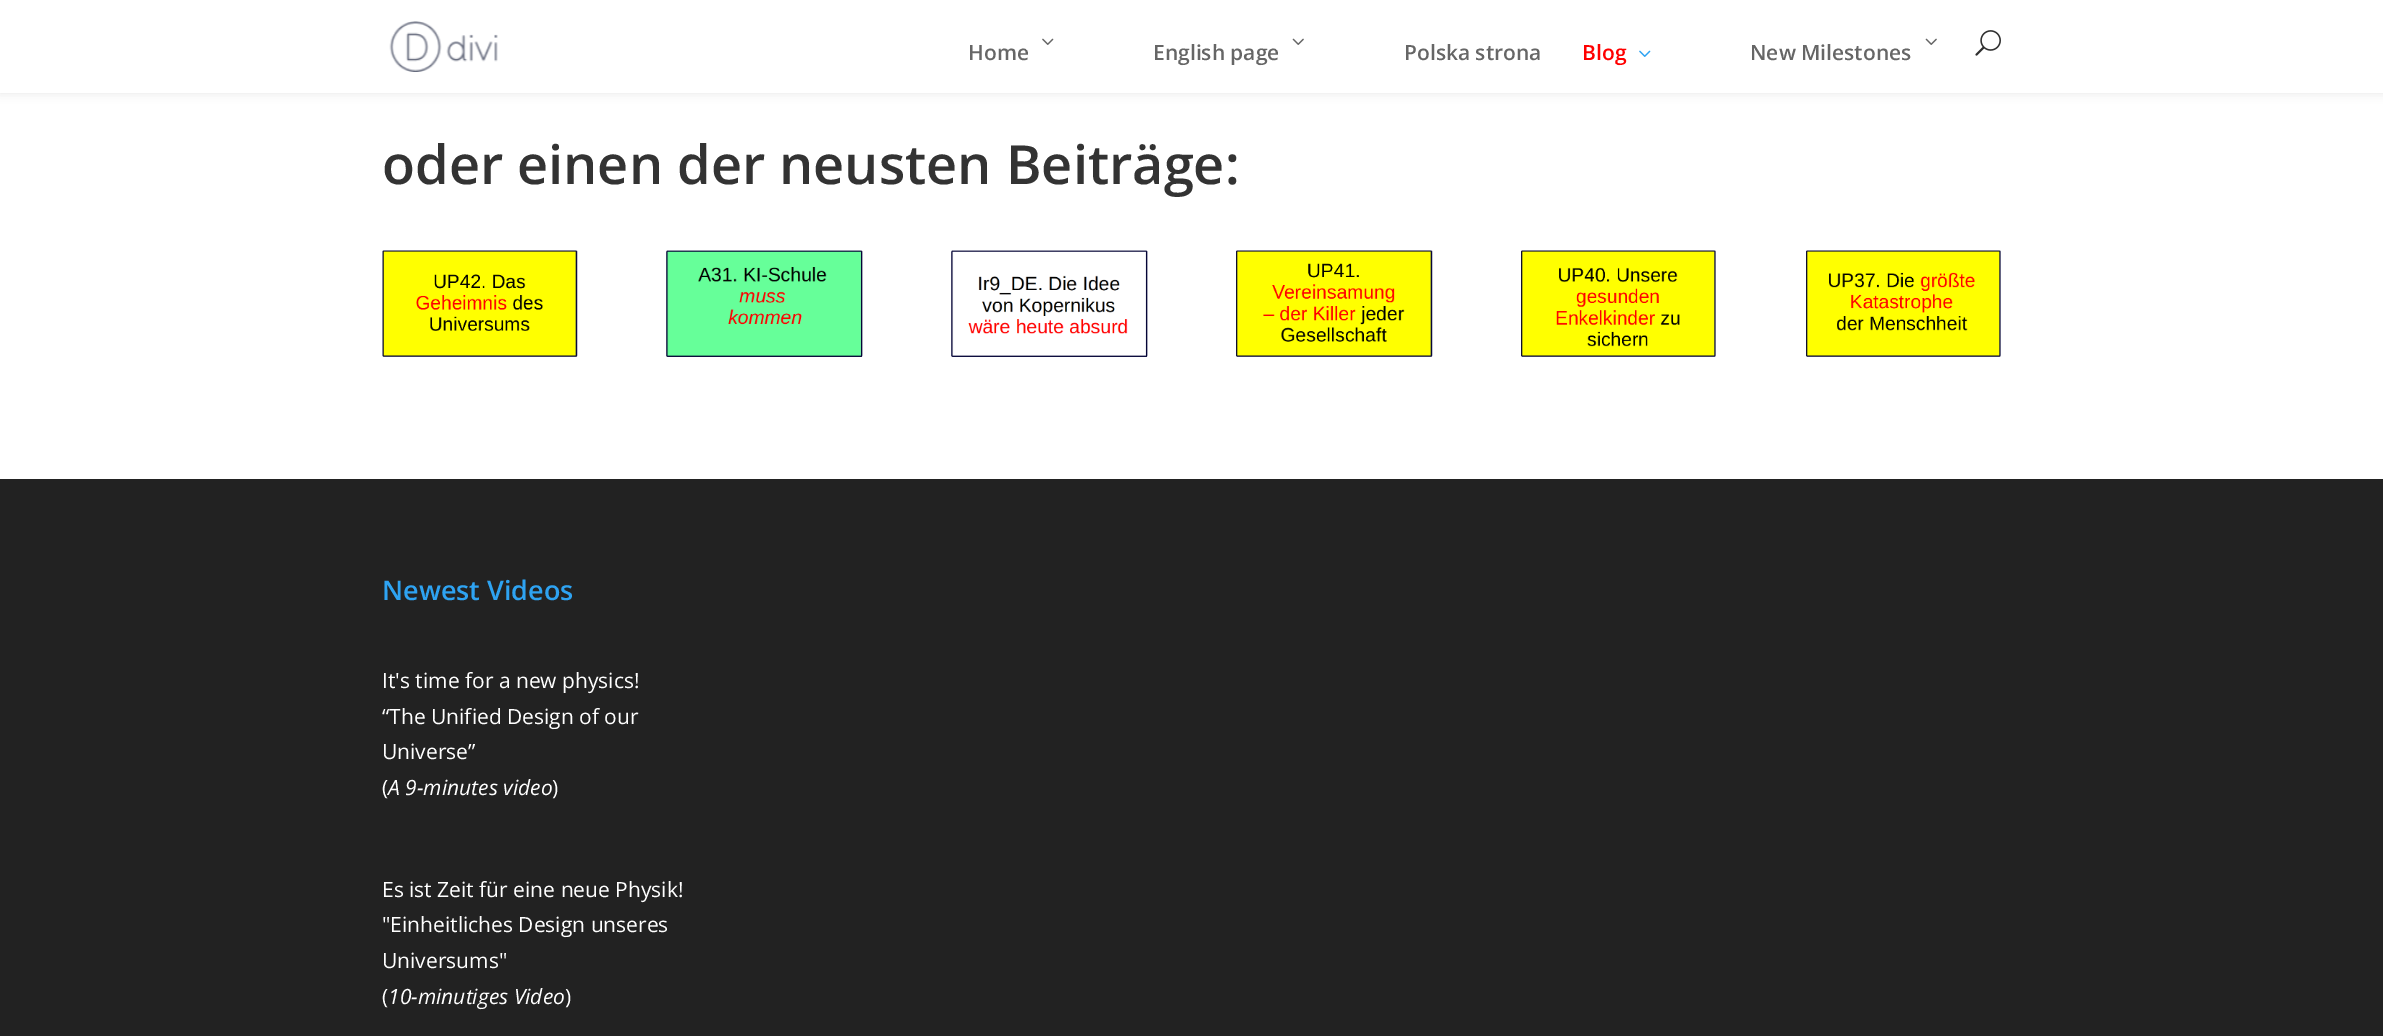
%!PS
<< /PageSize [2383 1036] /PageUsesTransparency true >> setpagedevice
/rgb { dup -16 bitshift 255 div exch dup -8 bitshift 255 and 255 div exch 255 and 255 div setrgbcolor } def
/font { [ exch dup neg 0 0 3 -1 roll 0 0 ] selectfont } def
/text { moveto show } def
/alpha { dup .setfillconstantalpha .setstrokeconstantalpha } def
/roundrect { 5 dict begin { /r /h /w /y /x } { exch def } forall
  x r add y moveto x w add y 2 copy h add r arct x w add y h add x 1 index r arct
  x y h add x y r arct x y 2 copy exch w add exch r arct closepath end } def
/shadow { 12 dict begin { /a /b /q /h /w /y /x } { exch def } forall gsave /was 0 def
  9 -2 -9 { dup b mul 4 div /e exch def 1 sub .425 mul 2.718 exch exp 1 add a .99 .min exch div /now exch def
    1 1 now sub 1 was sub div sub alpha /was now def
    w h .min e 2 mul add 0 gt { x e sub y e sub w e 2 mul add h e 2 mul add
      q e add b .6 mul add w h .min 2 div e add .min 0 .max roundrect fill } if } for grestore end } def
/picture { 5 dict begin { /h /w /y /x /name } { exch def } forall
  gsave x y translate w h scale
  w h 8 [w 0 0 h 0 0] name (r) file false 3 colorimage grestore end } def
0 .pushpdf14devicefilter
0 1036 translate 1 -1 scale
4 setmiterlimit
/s1 { /OpenSans-SemiBold 21 font 16#666666 rgb } def
/s2 { /OpenSans-SemiBold 21 font 16#FF0000 rgb } def
/s3 { /OpenSans-SemiBold 54 font 16#333333 rgb } def
/s4 { /OpenSans-SemiBold 27 font 16#2EA3F2 rgb } def
/s5 { /OpenSans-Regular 21 font 16#FFFFFF rgb } def
/s6 { /OpenSans-Italic 21 font 16#FFFFFF rgb } def
16#FFFFFF rgb
0 0 2383 1036 rectfill
16#000000 rgb
0 0 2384 93 0 5 0.1 shadow
16#FFFFFF rgb
0 0 2383 93 rectfill
(pic1.raw) 389 21 109 51 picture
(pic2.raw) 1042 38 12 7 picture
s1
(Home) 968 60 text
(pic3.raw) 1292 38 12 7 picture
(English page) 1153 60 text
(Polska strona) 1404 60 text
s2
(Blog) 1582 60 text
(pic4.raw) 1639 50 12 7 picture
(pic3.raw) 1925 38 12 7 picture
s1
(New Milestones) 1750 60 text
(pic5.raw) 1975 30 26 26 picture
s3
(oder einen der neusten Beiträge:) 382 184 text
(pic6.raw) 382 250 196 107 picture
(pic7.raw) 666 250 197 107 picture
(pic8.raw) 951 250 197 107 picture
(pic9.raw) 1236 250 197 107 picture
(pic10.raw) 1521 250 195 107 picture
(pic11.raw) 1806 250 195 107 picture
16#222222 rgb
0 479 2383 557 rectfill
s4
(Newest Videos) 382 600 text
s5
(It's time for a new physics!) 382 688 text
(“The Unified Design of our) 382 724 text
(Universe”) 382 759 text
(\() 382 795 text
s6
(A 9-minutes video) 388 795 text
s5
(\)) 552 795 text
(Es ist Zeit für eine neue Physik!) 382 897 text
("Einheitliches Design unseres) 382 932 text
(Universums") 382 968 text
(\() 382 1004 text
s6
(10-minutiges Video) 388 1004 text
s5
(\)) 565 1004 text
.poppdf14devicefilter showpage
